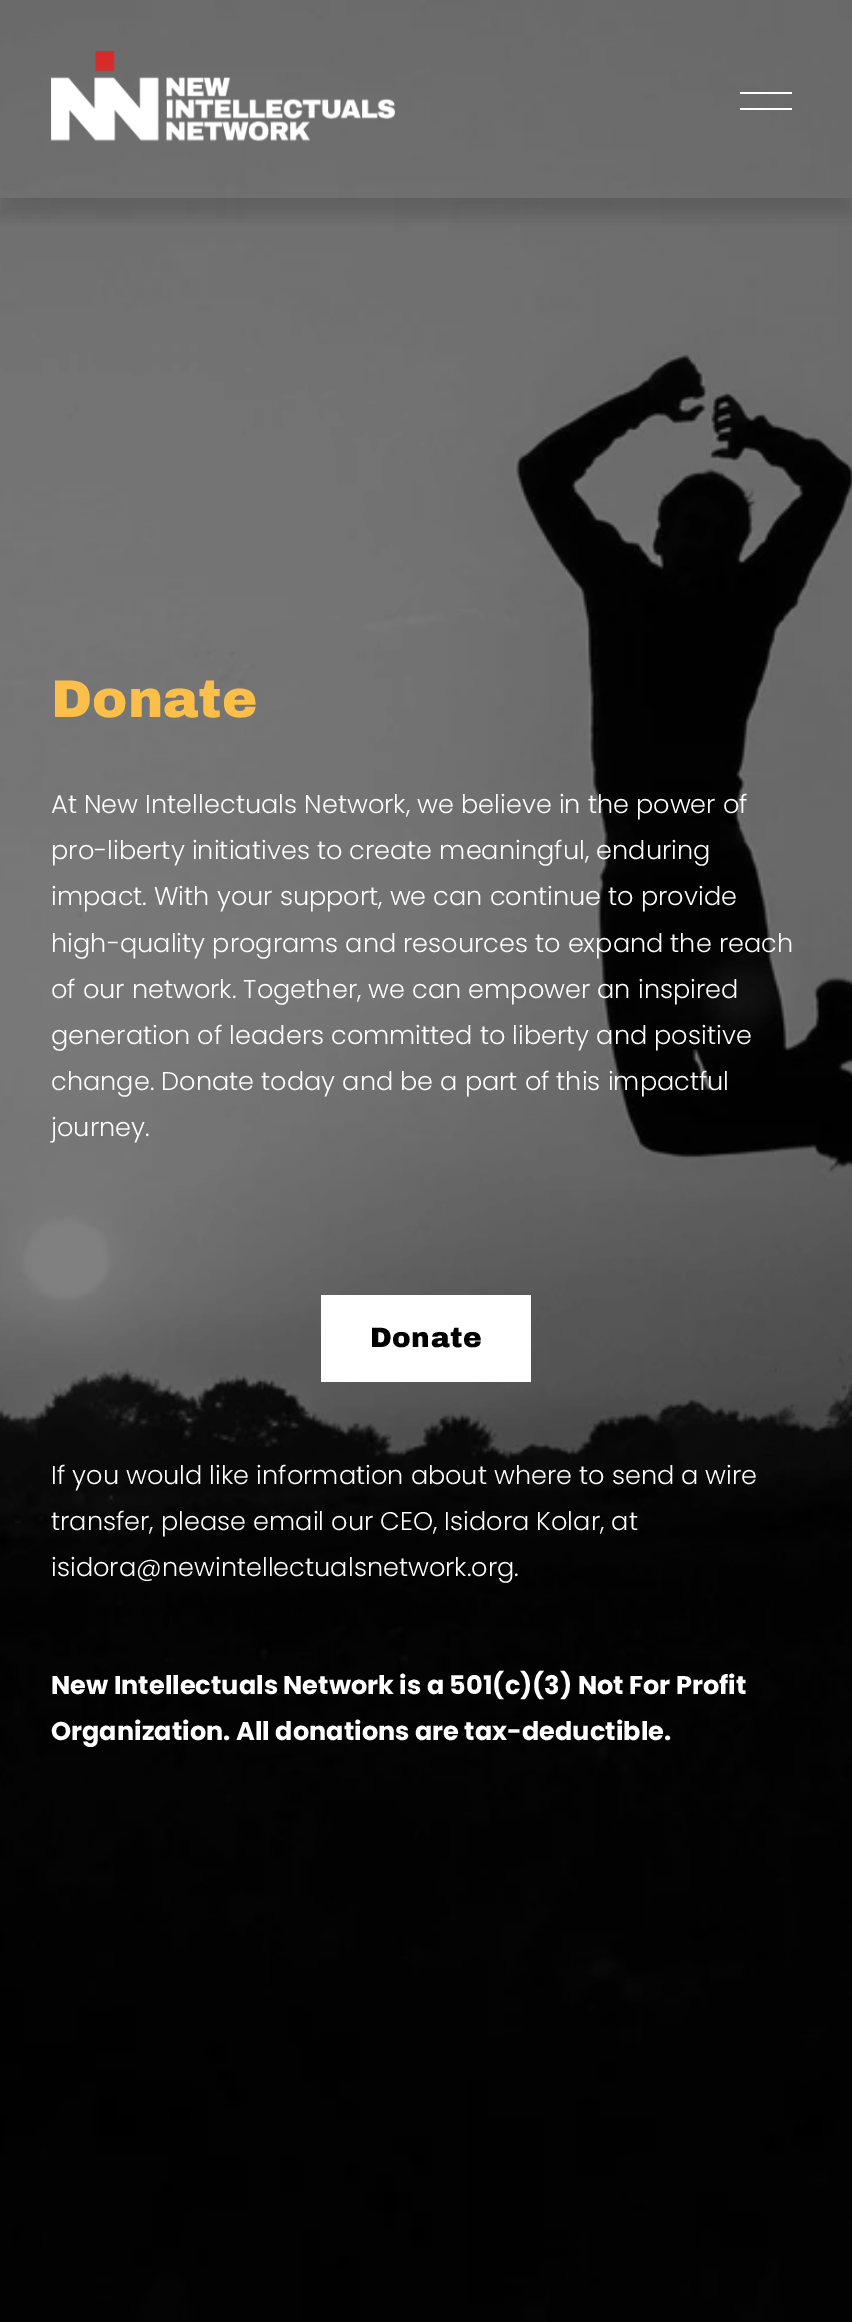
%!PS
<< /PageSize [852 2322] /PageUsesTransparency true >> setpagedevice
/rgb { dup -16 bitshift 255 div exch dup -8 bitshift 255 and 255 div exch 255 and 255 div setrgbcolor } def
/font { [ exch dup neg 0 0 3 -1 roll 0 0 ] selectfont } def
/text { moveto show } def
/alpha { dup .setfillconstantalpha .setstrokeconstantalpha } def
/roundrect { 5 dict begin { /r /h /w /y /x } { exch def } forall
  x r add y moveto x w add y 2 copy h add r arct x w add y h add x 1 index r arct
  x y h add x y r arct x y 2 copy exch w add exch r arct closepath end } def
/shadow { 12 dict begin { /a /b /q /h /w /y /x } { exch def } forall gsave /was 0 def
  9 -2 -9 { dup b mul 4 div /e exch def 1 sub .425 mul 2.718 exch exp 1 add a .99 .min exch div /now exch def
    1 1 now sub 1 was sub div sub alpha /was now def
    w h .min e 2 mul add 0 gt { x e sub y e sub w e 2 mul add h e 2 mul add
      q e add b .6 mul add w h .min 2 div e add .min 0 .max roundrect fill } if } for grestore end } def
/picture { 5 dict begin { /h /w /y /x /name } { exch def } forall
  gsave x y translate w h scale
  w h 8 [w 0 0 h 0 0] name (r) file false 3 colorimage grestore end } def
0 .pushpdf14devicefilter
0 2322 translate 1 -1 scale
4 setmiterlimit
/s1 { /ArchivoBlack-Black 53 font 16#FCBF49 rgb } def
/s2 { /Poppins-Light 25.6 font 16#FFFFFF rgb } def
/s3 { /Poppins-Bold 25.6 font 16#FFFFFF rgb } def
16#FFFFFF rgb
0 0 852 2322 rectfill
(pic2.raw) 0 0 852 2322 picture
gsave
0 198 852 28 rectclip
16#000000 rgb
0 18 852 198 0 9 0.15 shadow
grestore
(pic1.raw) 51 51 345 91 picture
740 92 52 2 rectfill
740 108 52 2 rectfill
s1
(Donate) 51 717 text
s2
(At New Intellectuals Network, we believe in the power of) 51 813 text
(pro-liberty initiatives to create meaningful, enduring) 51 859 text
(impact. With your support, we can continue to provide) 51 905 text
(high-quality programs and resources to expand the reach) 51 952 text
(of our network. Together, we can empower an inspired) 51 998 text
(generation of leaders committed to liberty and positive) 51 1044 text
(change. Donate today and be a part of this impactful) 51 1090 text
(journey.) 51 1136 text
321 1295 210 87 rectfill
/ArchivoBlack-Black 28 font
16#000000 rgb
370 1347 moveto 0.5 0 (Donate) ashow
s2
(If you would like information about where to send a wire) 51 1484 text
(transfer, please email our CEO, Isidora Kolar, at) 51 1530 text
(isidora@newintellectualsnetwork.org.) 51 1576 text
s3
(New Intellectuals Network is a 501\(c\)\(3\) Not For Profit) 51 1694 text
(Organization. All donations are tax-deductible.) 51 1740 text
.poppdf14devicefilter showpage
